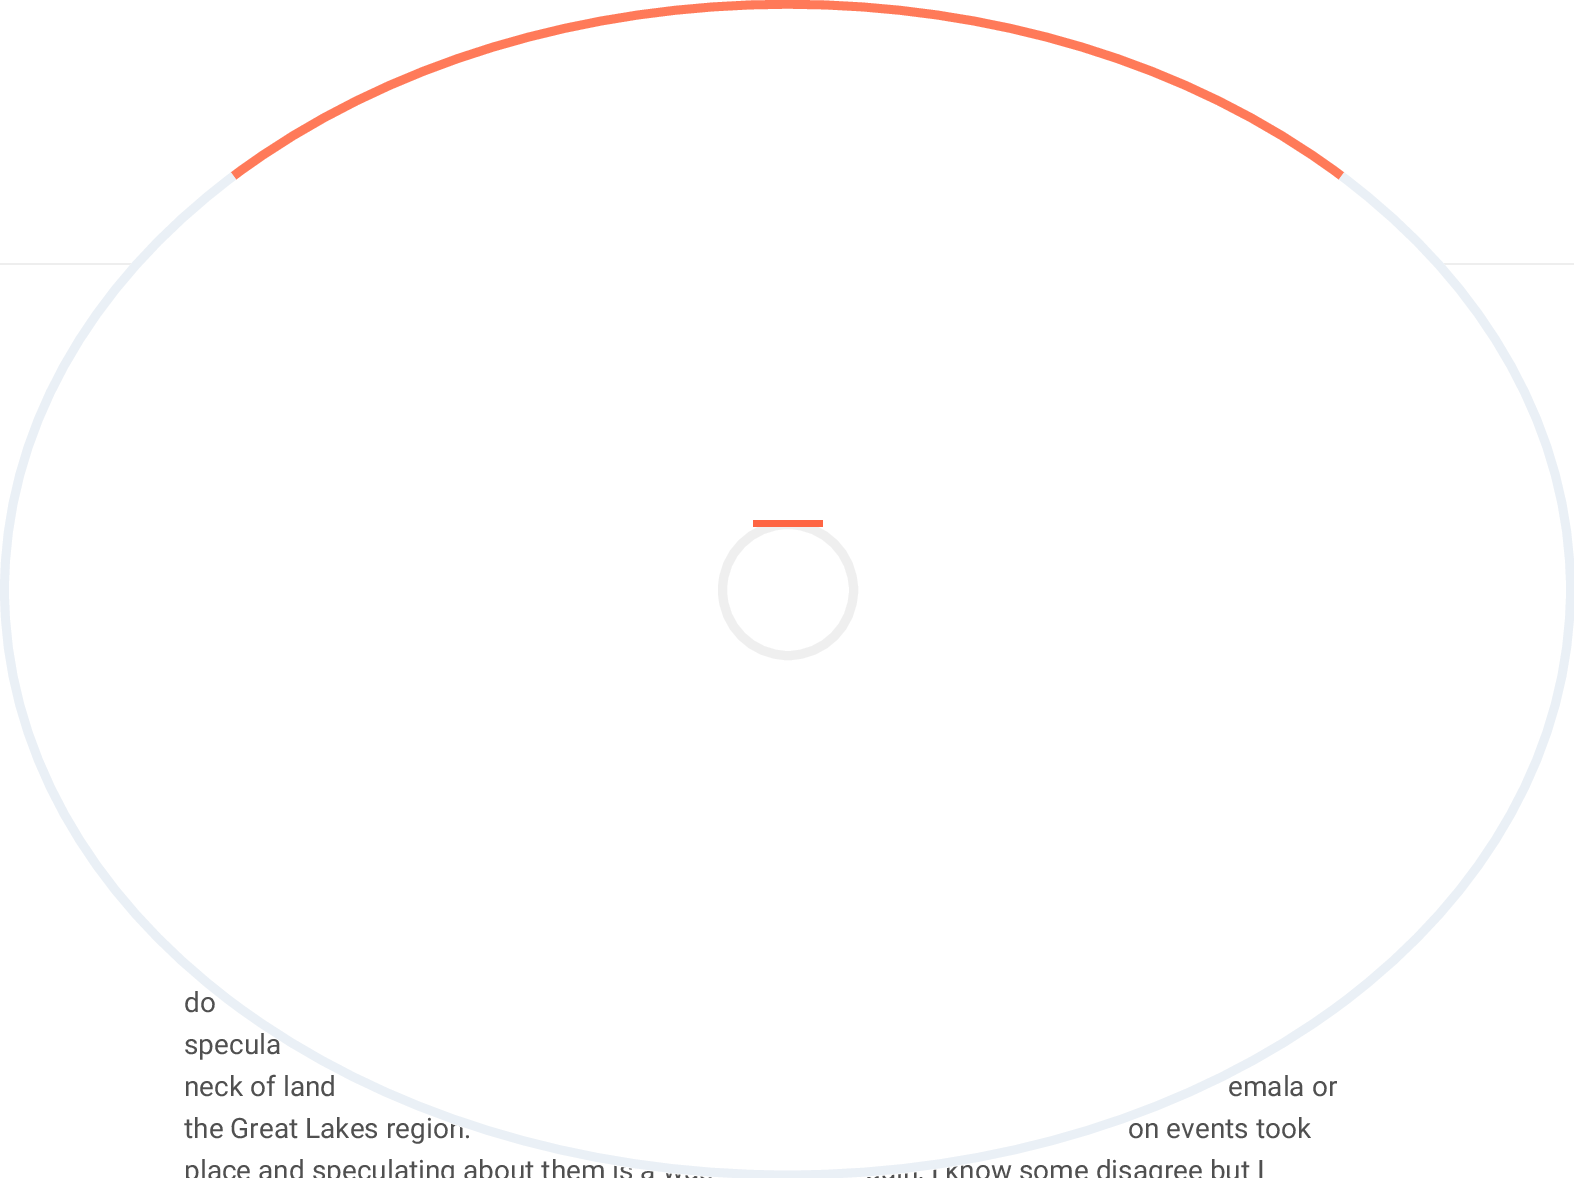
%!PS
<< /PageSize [1574 1178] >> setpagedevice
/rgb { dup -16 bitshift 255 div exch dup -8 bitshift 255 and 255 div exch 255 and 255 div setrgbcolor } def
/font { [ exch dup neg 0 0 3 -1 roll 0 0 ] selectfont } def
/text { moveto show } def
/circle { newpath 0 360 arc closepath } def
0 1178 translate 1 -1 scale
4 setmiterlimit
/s1 { /Roboto-Regular 28 font 16#505050 rgb } def
16#FFFFFF rgb
0 0 1574 1178 rectfill
16#EEEEEE rgb
0 263 1574 2 rectfill
s1
(do) 184 1012 text
(specula) 184 1054 text
(neck of land) 184 1096 text
(emala or) 1228 1096 text
(the Great Lakes region.) 184 1138 text
(on events took) 1128 1138 text
(place and speculating about them is a was) 184 1180 text
(gain, I know some disagree but I) 865 1180 text
16#FFFFFF rgb
787.5 0 moveto 1222.5 0 1575 264 1575 590 curveto 1575 916 1222.5 1180 787.5 1180 curveto 352.5 1180 0 916 0 590 curveto 0 264 352.5 0 787.5 0 curveto closepath fill
16#FF7A59 rgb
8.8 setlinewidth
233.5 176 moveto 539.5 -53 1035.5 -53 1341.5 176 curveto stroke
16#EAF0F6 rgb
1341.5 176 moveto 1488 285.5 1570.5 434.5 1570.5 589.5 curveto 1570.5 745 1488 894 1341.5 1003.5 curveto 1194.5 1113.5 995 1175 787.5 1175 curveto 580 1175 380.5 1113.5 233.5 1003.5 curveto 87 894 4.5 745 4.5 590 curveto 4.5 434.5 87 285.5 233.5 176 curveto stroke
16#EFEFEF rgb
9 setlinewidth
788 590 65.5 circle stroke
16#FE6543 rgb
753 520 70 7 rectfill
showpage
